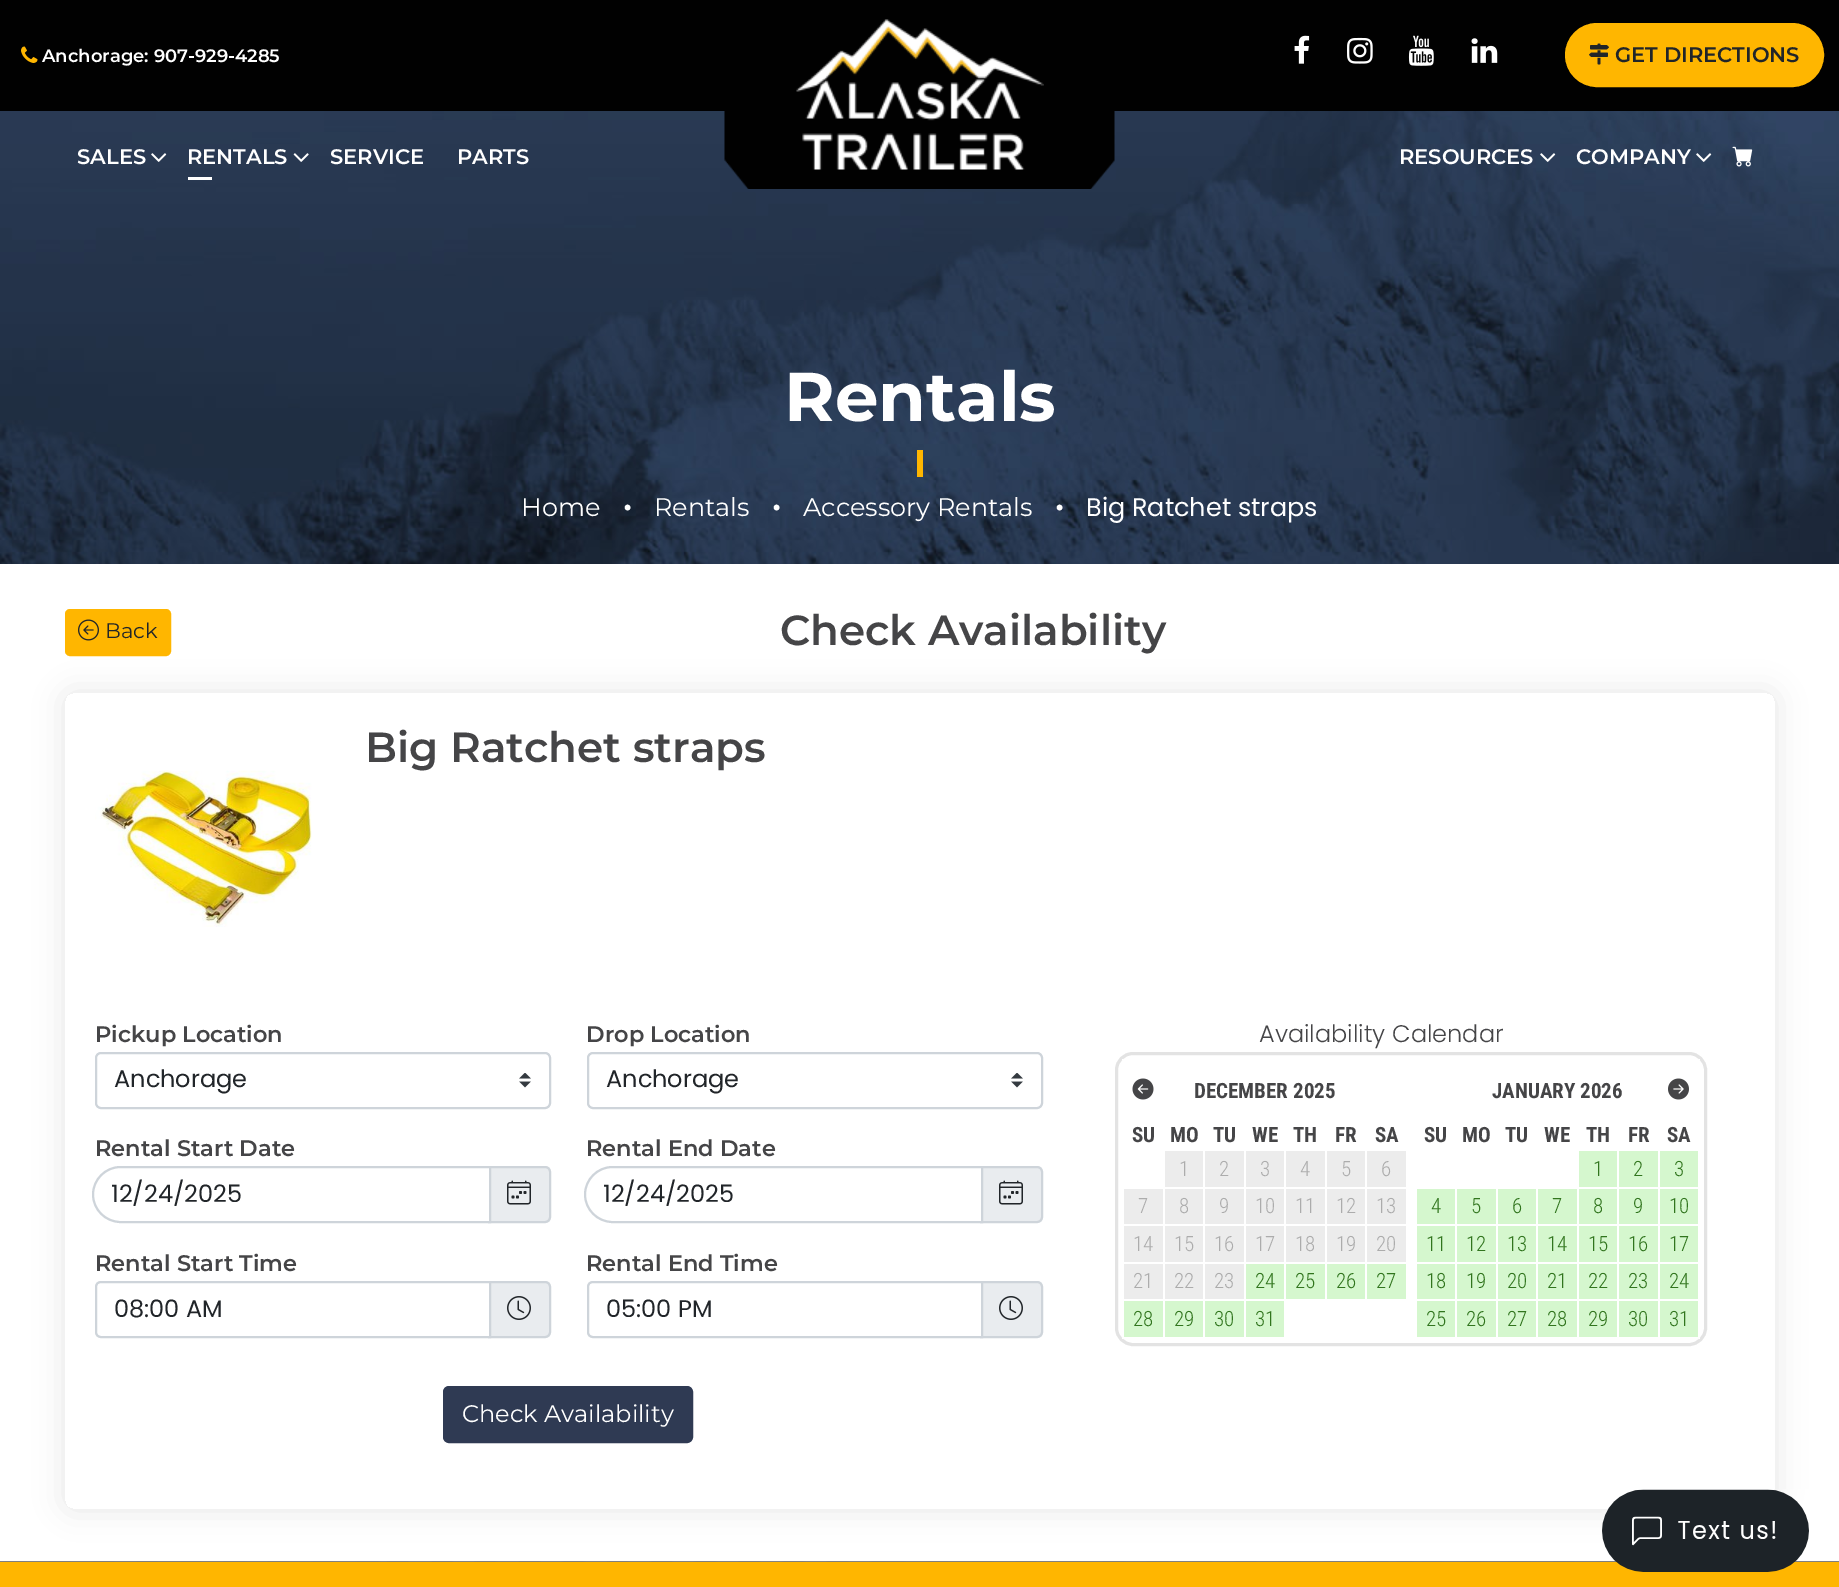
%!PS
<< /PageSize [1839 1587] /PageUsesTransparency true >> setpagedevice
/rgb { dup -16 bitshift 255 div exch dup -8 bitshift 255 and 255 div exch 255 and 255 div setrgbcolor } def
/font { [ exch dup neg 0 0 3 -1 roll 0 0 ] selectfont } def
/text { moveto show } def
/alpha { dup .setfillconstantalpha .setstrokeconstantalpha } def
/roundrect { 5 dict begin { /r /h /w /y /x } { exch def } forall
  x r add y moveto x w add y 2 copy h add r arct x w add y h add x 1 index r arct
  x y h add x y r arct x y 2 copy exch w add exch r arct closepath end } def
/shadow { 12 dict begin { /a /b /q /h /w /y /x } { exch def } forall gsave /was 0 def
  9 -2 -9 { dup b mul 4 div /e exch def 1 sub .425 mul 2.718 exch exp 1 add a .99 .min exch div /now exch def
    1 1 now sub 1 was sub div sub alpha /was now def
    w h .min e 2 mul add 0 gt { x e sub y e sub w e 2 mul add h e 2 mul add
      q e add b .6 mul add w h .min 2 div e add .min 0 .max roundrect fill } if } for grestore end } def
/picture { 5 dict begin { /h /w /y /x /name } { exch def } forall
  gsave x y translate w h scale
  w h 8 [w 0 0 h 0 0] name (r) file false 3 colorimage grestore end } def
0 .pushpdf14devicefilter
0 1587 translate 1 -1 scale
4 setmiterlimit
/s1 { /Montserrat-SemiBold 18 font 16#FFFFFF rgb } def
/s2 { /Montserrat-SemiBold 21 font 16#212529 rgb } def
/s3 { /Montserrat-SemiBold 21 font 16#FFFFFF rgb } def
/s4 { /Montserrat-Bold 69 font 16#FFFFFF rgb } def
/s5 { /Montserrat-Regular 25.5 font 16#FFFFFF rgb } def
/s6 { /Poppins-Light 25.5 font 16#FFFFFF rgb } def
/s7 { /Poppins-Regular 25.5 font 16#FFFFFF rgb } def
/s8 { /Montserrat-Regular 21 font 16#212529 rgb } def
/s9 { /Montserrat-SemiBold 42 font 16#454547 rgb } def
/s10 { /Montserrat-SemiBold 22.5 font 16#454547 rgb } def
/s11 { /Poppins-Regular 24 font 16#212529 rgb } def
/s12 { /Montserrat-Regular 24 font 16#FFFFFF rgb } def
/s13 { /Poppins-Light 24 font 16#454547 rgb } def
/s14 { /RobotoCondensed-Bold 21 font 16#454547 rgb } def
/s15 { /RobotoCondensed-Light 21 font 16#ACACAC rgb } def
/s16 { /RobotoCondensed-Light 21 font 16#31751E rgb } def
16#FFFFFF rgb
0 0 1839 1587 rectfill
(pic1.raw) 0 111 1839 453 picture
(pic2.raw) 724 111 391 78 picture
16#010101 rgb
0 0 1839 111 rectfill
(pic3.raw) 796 19 248 151 picture
(pic4.raw) 21 46 17 17 picture
s1
(Anchorage: 907-929-4285) 42 62 text
(pic5.raw) 1294 35 16 29 picture
(pic6.raw) 1347 37 26 27 picture
(pic7.raw) 1408 35 26 31 picture
(pic8.raw) 1471 38 27 25 picture
16#FFB600 rgb
1566.5 24.5 256 61 30.5 roundrect gsave fill grestore
3 setlinewidth
stroke
(pic9.raw) 1589 43 20 22 picture
s2
(GET DIRECTIONS) 1615 62 text
s3
(SALES) 77 164 text
(pic10.raw) 151 153 16 9 picture
(RENTALS) 187 164 text
188 177 24 3 rectfill
(pic11.raw) 293 153 16 9 picture
(SERVICE) 330 164 text
(PARTS) 457 164 text
(RESOURCES) 1399 164 text
(pic12.raw) 1540 153 16 9 picture
(COMPANY) 1576 164 text
(pic13.raw) 1696 153 16 9 picture
(pic14.raw) 1732 146 21 21 picture
s4
(Rentals) 784 421 text
16#FFB600 rgb
917 450 6 27 rectfill
s5
(Home) 521 516 text
s6
(•) 623 516 text
s5
(Rentals) 654 516 text
s6
(•) 772 516 text
s5
(Accessory Rentals) 803 516 text
s6
(•) 1055 516 text
s7
(Big Ratchet straps) 1086 516 text
gsave
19 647 moveto 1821 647 lineto 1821 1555 lineto 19 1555 lineto closepath 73 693 moveto 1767 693 lineto 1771.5 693 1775 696.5 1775 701 curveto 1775 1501 lineto 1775 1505.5 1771.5 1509 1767 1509 curveto 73 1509 lineto 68.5 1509 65 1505.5 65 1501 curveto 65 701 lineto 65 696.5 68.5 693 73 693 curveto closepath eoclip newpath
16#000000 rgb
65 693 1710 816 8 15 0.1 shadow
grestore
16#FFB600 rgb
66 610 104 45 4 roundrect gsave fill grestore
2 setlinewidth
stroke
(pic15.raw) 78 619 21 22 picture
s8
(Back) 105 638 text
s9
(Check Availability) 780 645 text
(Big Ratchet straps) 365 762 text
(pic16.raw) 95 770 217 157 picture
s10
(Pickup Location) 95 1042 text
(pic17.raw) 519 1073 12 15 picture
16#CED4DA rgb
96 1053 454 55 5 roundrect stroke
s11
(Anchorage) 114 1087 text
s10
(Drop Location) 586 1042 text
(pic17.raw) 1011 1073 12 15 picture
16#CED4DA rgb
588 1053 454 55 5 roundrect stroke
s11
(Anchorage) 606 1087 text
s10
(Rental Start Date) 95 1156 text
16#E9ECEF rgb
489 1167 moveto 545 1167 lineto 548 1167 550 1169 550 1172 curveto 550 1217 lineto 550 1220 548 1222 545 1222 curveto 489 1222 lineto closepath gsave fill grestore
16#CED4DA rgb
stroke
16#FFFFFF rgb
120.5 1167 moveto 490 1167 lineto 490 1222 lineto 120.5 1222 lineto 105.5 1222 93 1209.5 93 1194.5 curveto 93 1179.5 105.5 1167 120.5 1167 curveto closepath gsave fill grestore
16#CED4DA rgb
stroke
s11
(12/24/2025) 111 1202 text
(pic18.raw) 507 1180 24 25 picture
s10
(Rental End Date) 586 1156 text
16#E9ECEF rgb
981 1167 moveto 1037 1167 lineto 1040 1167 1042 1169 1042 1172 curveto 1042 1217 lineto 1042 1220 1040 1222 1037 1222 curveto 981 1222 lineto closepath gsave fill grestore
16#CED4DA rgb
stroke
16#FFFFFF rgb
612.5 1167 moveto 982 1167 lineto 982 1222 lineto 612.5 1222 lineto 597.5 1222 585 1209.5 585 1194.5 curveto 585 1179.5 597.5 1167 612.5 1167 curveto closepath gsave fill grestore
16#CED4DA rgb
stroke
s11
(12/24/2025) 603 1202 text
(pic18.raw) 999 1180 24 25 picture
s10
(Rental Start Time) 95 1271 text
16#E9ECEF rgb
489 1282 moveto 545 1282 lineto 548 1282 550 1284 550 1287 curveto 550 1332 lineto 550 1335 548 1337 545 1337 curveto 489 1337 lineto closepath gsave fill grestore
16#CED4DA rgb
stroke
16#FFFFFF rgb
101 1282 moveto 490 1282 lineto 490 1337 lineto 101 1337 lineto 98 1337 96 1335 96 1332 curveto 96 1287 lineto 96 1284 98 1282 101 1282 curveto closepath gsave fill grestore
16#CED4DA rgb
stroke
s11
(08:00 AM) 114 1317 text
(pic19.raw) 507 1296 24 24 picture
s10
(Rental End Time) 586 1271 text
16#E9ECEF rgb
981 1282 moveto 1037 1282 lineto 1040 1282 1042 1284 1042 1287 curveto 1042 1332 lineto 1042 1335 1040 1337 1037 1337 curveto 981 1337 lineto closepath gsave fill grestore
16#CED4DA rgb
stroke
16#FFFFFF rgb
593 1282 moveto 982 1282 lineto 982 1337 lineto 593 1337 lineto 590 1337 588 1335 588 1332 curveto 588 1287 lineto 588 1284 590 1282 593 1282 curveto closepath gsave fill grestore
16#CED4DA rgb
stroke
s11
(05:00 PM) 606 1317 text
(pic19.raw) 999 1296 24 24 picture
16#2F3A53 rgb
444 1387 248 55 5 roundrect gsave fill grestore
stroke
s12
(Check Availability) 462 1422 text
s13
(Availability Calendar) 1259 1042 text
16#E3E3E3 rgb
3 setlinewidth
1116.5 1053.5 589 291 16.5 roundrect stroke
16#FFFFFF rgb
1122 1059 1 1 rectfill
(pic20.raw) 1132 1078 22 22 picture
s14
(DECEMBER 2025) 1194 1098 text
(SU) 1132 1142 text
(MO) 1170 1142 text
(TU) 1213 1142 text
(WE) 1252 1142 text
(TH) 1293 1142 text
(FR) 1335 1142 text
(SA) 1375 1142 text
16#ECECEC rgb
1165 1151 38 36 rectfill
s15
(1) 1179 1176 text
16#ECECEC rgb
1205 1151 39 36 rectfill
s15
(2) 1219 1176 text
16#ECECEC rgb
1246 1151 38 36 rectfill
s15
(3) 1260 1176 text
16#ECECEC rgb
1286 1151 39 36 rectfill
s15
(4) 1300 1176 text
16#ECECEC rgb
1327 1151 38 36 rectfill
s15
(5) 1341 1176 text
16#ECECEC rgb
1367 1151 39 36 rectfill
s15
(6) 1381 1176 text
16#ECECEC rgb
1124 1189 39 35 rectfill
s15
(7) 1138 1213 text
16#ECECEC rgb
1165 1189 38 35 rectfill
s15
(8) 1179 1213 text
16#ECECEC rgb
1205 1189 39 35 rectfill
s15
(9) 1219 1213 text
16#ECECEC rgb
1246 1189 38 35 rectfill
s15
(10) 1255 1213 text
16#ECECEC rgb
1286 1189 39 35 rectfill
s15
(11) 1295 1213 text
16#ECECEC rgb
1327 1189 38 35 rectfill
s15
(12) 1336 1213 text
16#ECECEC rgb
1367 1189 39 35 rectfill
s15
(13) 1376 1213 text
16#ECECEC rgb
1124 1226 39 36 rectfill
s15
(14) 1133 1251 text
16#ECECEC rgb
1165 1226 38 36 rectfill
s15
(15) 1174 1251 text
16#ECECEC rgb
1205 1226 39 36 rectfill
s15
(16) 1214 1251 text
16#ECECEC rgb
1246 1226 38 36 rectfill
s15
(17) 1255 1251 text
16#ECECEC rgb
1286 1226 39 36 rectfill
s15
(18) 1295 1251 text
16#ECECEC rgb
1327 1226 38 36 rectfill
s15
(19) 1336 1251 text
16#ECECEC rgb
1367 1226 39 36 rectfill
s15
(20) 1376 1251 text
16#ECECEC rgb
1124 1264 39 35 rectfill
s15
(21) 1133 1288 text
16#ECECEC rgb
1165 1264 38 35 rectfill
s15
(22) 1174 1288 text
16#ECECEC rgb
1205 1264 39 35 rectfill
s15
(23) 1214 1288 text
16#D5F7CE rgb
1246 1264 38 35 rectfill
s16
(24) 1255 1288 text
16#D5F7CE rgb
1286 1264 39 35 rectfill
s16
(25) 1295 1288 text
16#D5F7CE rgb
1327 1264 38 35 rectfill
s16
(26) 1336 1288 text
16#D5F7CE rgb
1367 1264 39 35 rectfill
s16
(27) 1376 1288 text
16#FFFFFF rgb
1122 1338 1 1 rectfill
16#D5F7CE rgb
1124 1301 39 36 rectfill
s16
(28) 1133 1326 text
16#D5F7CE rgb
1165 1301 38 36 rectfill
s16
(29) 1174 1326 text
16#D5F7CE rgb
1205 1301 39 36 rectfill
s16
(30) 1214 1326 text
16#D5F7CE rgb
1246 1301 38 36 rectfill
s16
(31) 1255 1326 text
s14
(JANUARY 2026) 1492 1098 text
16#FFFFFF rgb
1699 1059 1 1 rectfill
(pic21.raw) 1668 1078 21 22 picture
s14
(SU) 1424 1142 text
(MO) 1462 1142 text
(TU) 1505 1142 text
(WE) 1544 1142 text
(TH) 1586 1142 text
(FR) 1628 1142 text
(SA) 1667 1142 text
16#D5F7CE rgb
1579 1151 38 36 rectfill
s16
(1) 1593 1176 text
16#D5F7CE rgb
1619 1151 39 36 rectfill
s16
(2) 1633 1176 text
16#D5F7CE rgb
1660 1151 38 36 rectfill
s16
(3) 1674 1176 text
16#D5F7CE rgb
1417 1189 38 35 rectfill
s16
(4) 1431 1213 text
16#D5F7CE rgb
1457 1189 39 35 rectfill
s16
(5) 1471 1213 text
16#D5F7CE rgb
1498 1189 38 35 rectfill
s16
(6) 1512 1213 text
16#D5F7CE rgb
1538 1189 39 35 rectfill
s16
(7) 1552 1213 text
16#D5F7CE rgb
1579 1189 38 35 rectfill
s16
(8) 1593 1213 text
16#D5F7CE rgb
1619 1189 39 35 rectfill
s16
(9) 1633 1213 text
16#D5F7CE rgb
1660 1189 38 35 rectfill
s16
(10) 1669 1213 text
16#D5F7CE rgb
1417 1226 38 36 rectfill
s16
(11) 1426 1251 text
16#D5F7CE rgb
1457 1226 39 36 rectfill
s16
(12) 1466 1251 text
16#D5F7CE rgb
1498 1226 38 36 rectfill
s16
(13) 1507 1251 text
16#D5F7CE rgb
1538 1226 39 36 rectfill
s16
(14) 1547 1251 text
16#D5F7CE rgb
1579 1226 38 36 rectfill
s16
(15) 1588 1251 text
16#D5F7CE rgb
1619 1226 39 36 rectfill
s16
(16) 1628 1251 text
16#D5F7CE rgb
1660 1226 38 36 rectfill
s16
(17) 1669 1251 text
16#D5F7CE rgb
1417 1264 38 35 rectfill
s16
(18) 1426 1288 text
16#D5F7CE rgb
1457 1264 39 35 rectfill
s16
(19) 1466 1288 text
16#D5F7CE rgb
1498 1264 38 35 rectfill
s16
(20) 1507 1288 text
16#D5F7CE rgb
1538 1264 39 35 rectfill
s16
(21) 1547 1288 text
16#D5F7CE rgb
1579 1264 38 35 rectfill
s16
(22) 1588 1288 text
16#D5F7CE rgb
1619 1264 39 35 rectfill
s16
(23) 1628 1288 text
16#D5F7CE rgb
1660 1264 38 35 rectfill
s16
(24) 1669 1288 text
16#D5F7CE rgb
1417 1301 38 36 rectfill
s16
(25) 1426 1326 text
16#D5F7CE rgb
1457 1301 39 36 rectfill
s16
(26) 1466 1326 text
16#D5F7CE rgb
1498 1301 38 36 rectfill
s16
(27) 1507 1326 text
16#D5F7CE rgb
1538 1301 39 36 rectfill
s16
(28) 1547 1326 text
16#D5F7CE rgb
1579 1301 38 36 rectfill
s16
(29) 1588 1326 text
16#D5F7CE rgb
1619 1301 39 36 rectfill
s16
(30) 1628 1326 text
16#FFFFFF rgb
1699 1338 1 1 rectfill
16#D5F7CE rgb
1660 1301 38 36 rectfill
s16
(31) 1669 1326 text
(pic22.raw) 0 1561 1839 1 picture
16#FFB600 rgb
0 1562 1839 25 rectfill
(pic23.raw) 1602 1489 207 83 picture
.poppdf14devicefilter showpage
